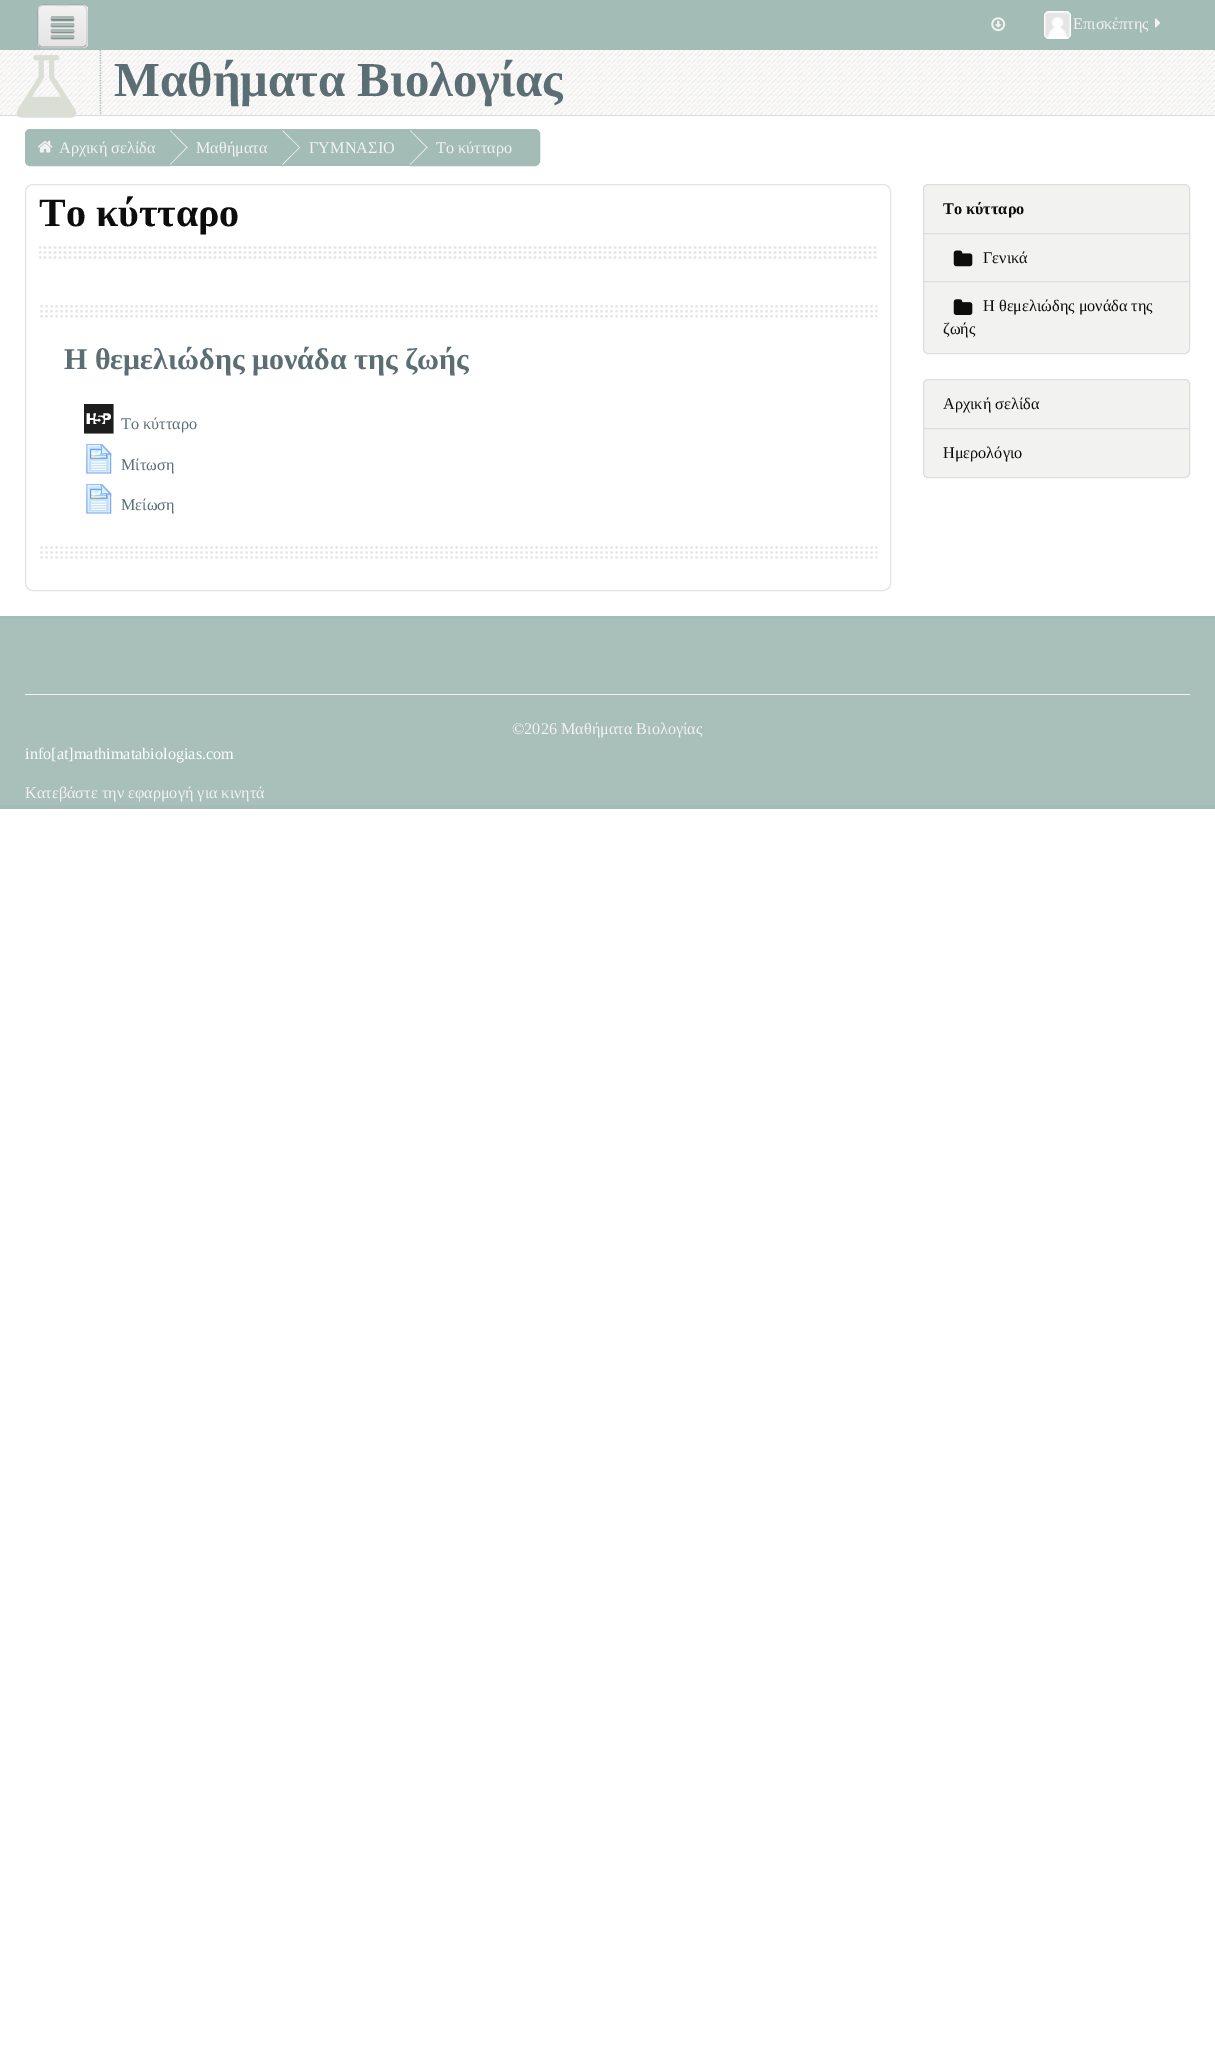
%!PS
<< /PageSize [1215 2056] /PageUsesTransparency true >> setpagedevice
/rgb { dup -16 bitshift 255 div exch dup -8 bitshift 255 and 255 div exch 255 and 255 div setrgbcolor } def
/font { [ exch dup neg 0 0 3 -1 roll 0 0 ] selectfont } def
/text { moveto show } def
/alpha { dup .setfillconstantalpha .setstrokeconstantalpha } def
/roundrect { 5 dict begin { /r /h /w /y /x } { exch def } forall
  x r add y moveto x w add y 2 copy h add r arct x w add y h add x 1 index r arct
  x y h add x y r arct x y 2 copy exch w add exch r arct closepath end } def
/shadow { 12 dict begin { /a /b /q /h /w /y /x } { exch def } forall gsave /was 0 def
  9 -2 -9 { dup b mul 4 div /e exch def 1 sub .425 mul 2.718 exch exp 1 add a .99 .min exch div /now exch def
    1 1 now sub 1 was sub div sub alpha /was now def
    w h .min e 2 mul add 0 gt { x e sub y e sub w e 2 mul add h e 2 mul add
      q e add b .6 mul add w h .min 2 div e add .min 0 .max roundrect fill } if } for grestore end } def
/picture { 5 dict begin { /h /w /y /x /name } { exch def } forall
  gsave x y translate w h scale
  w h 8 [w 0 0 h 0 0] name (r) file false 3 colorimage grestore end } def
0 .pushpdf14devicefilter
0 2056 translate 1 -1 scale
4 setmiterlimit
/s1 { /LiberationSerif-Regular 16.25 font 16#F2F2F0 rgb } def
/s2 { /LiberationSerif-Bold 48.75 font 16#5B6E74 rgb } def
/s3 { /LiberationSerif-Bold 40 font 16#0D0D0D rgb } def
/s4 { /LiberationSerif-Bold 30 font 16#5B6E74 rgb } def
/s5 { /LiberationSerif-Regular 16.25 font 16#5B6E74 rgb } def
/s6 { /LiberationSerif-Bold 16.25 font 16#0D0D0D rgb } def
/s7 { /LiberationSerif-Regular 16.25 font 16#0D0D0D rgb } def
/s8 { /LiberationSerif-Regular 16.25 font 16#FFFFFF rgb } def
16#FFFFFF rgb
0 0 1215 2056 rectfill
16#A3BCB6 rgb
0 0 1215 50 rectfill
16#AAC1BB rgb
38 45 moveto 38 47 41 49 43 49 curveto 83 49 lineto 86 49 88 47 88 44 curveto 88 11 lineto 87 8 lineto 88 26 lineto 88 52 90 48 62 48 curveto 49 48 lineto 46 48 40 49 38 45 curveto closepath fill
16#EDEDED rgb
38 5 50 43 5 roundrect fill
gsave
38 5 50 43 5 roundrect clip newpath
gsave 38 6 moveto 88 6 lineto 88 46 lineto 38 46 lineto closepath clip newpath
<< /ShadingType 2 /ColorSpace /DeviceRGB /Coords [63 6.2 63 46] /Extend [true true] /Function << /FunctionType 2 /Domain [0 1] /C0 [0.949 0.949 0.949] /C1 [0.898 0.898 0.898] /N 1 >> >> shfill grestore
grestore
0.25 alpha
16#000000 rgb
1.2 setlinewidth
85.5 45.5 moveto 85 46.5 83.5 47 82.5 47 curveto 42.5 47 lineto 41.5 47 40 46.5 39.5 45.5 curveto stroke
0.1 alpha
39.5 45.5 moveto 37.5 43.5 38 39.5 38 37 curveto 38 26 lineto 38 0.5 35 5.5 62.5 5.5 curveto 90 5.5 87 0.5 87 26 curveto 87 37 lineto 87 39.5 87.5 43.5 85.5 45.5 curveto stroke
1 alpha
51 18 23 3 1.5 0.5 0.45 shadow
16#A3BCB6 rgb
51 16 23 3 1.5 roundrect fill
16#000000 rgb
51 24 23 3 1.5 0.5 0.45 shadow
16#A3BCB6 rgb
51 23 23 3 1.5 roundrect fill
16#000000 rgb
51 30 23 3 1.5 0.5 0.45 shadow
16#A3BCB6 rgb
51 29 23 3 1.5 roundrect fill
16#000000 rgb
51 36 23 3 1.5 0.5 0.45 shadow
16#A3BCB6 rgb
51 35 23 3 1.5 roundrect fill
(pic1.raw) 991 17 15 15 picture
16#FFFFFF rgb
1044 11 27 28 5 roundrect fill
(pic2.raw) 1045 12 25 26 picture
s1
(Επισκέπτης) 1073 29 text
(pic3.raw) 1155 18 6 10 picture
(pic4.raw) 0 50 1215 67 picture
16#DDDDDD rgb
0 115 1215 1 rectfill
(pic5.raw) 16 55 61 63 picture
16#A3BCB6 rgb
[1.25 1.25] 0 setdash
100.5 50 moveto 100.5 115 lineto stroke
s2
(Μαθήματα Βιολογίας) 114 96 text
16#A3BCB6 rgb
30 129.5 moveto 169.5 129.5 lineto 169.5 165.5 lineto 30 165.5 lineto 27.5 165.5 25.5 163.5 25.5 161 curveto 25.5 134 lineto 25.5 131.5 27.5 129.5 30 129.5 curveto closepath gsave fill grestore
1 setlinewidth
[] 0 setdash
stroke
170 129 240 37 rectfill
16#F2F2F0 rgb
170 165 moveto 170 130 lineto 187.5 147.5 lineto closepath fill
16#A3BCB6 rgb
169 165 moveto 169 130 lineto 186 147.5 lineto closepath fill
(pic6.raw) 37 140 16 13 picture
s1
(Αρχική σελίδα) 59 153 text
282.5 165 moveto 282.5 130 lineto 300 147.5 lineto closepath fill
16#A3BCB6 rgb
281 165 moveto 281 130 lineto 299 147.5 lineto closepath fill
s1
(Μαθήματα) 196 153 text
16#A3BCB6 rgb
410.5 129.5 moveto 535 129.5 lineto 537.5 129.5 539.5 131.5 539.5 134 curveto 539.5 161 lineto 539.5 163.5 537.5 165.5 535 165.5 curveto 410.5 165.5 lineto closepath gsave fill grestore
stroke
16#F2F2F0 rgb
410 165 moveto 410 130 lineto 427.5 147.5 lineto closepath fill
16#A3BCB6 rgb
409 165 moveto 409 130 lineto 426 147.5 lineto closepath fill
s1
(ΓΥΜΝΑΣΙΟ) 309 153 text
(Το κύτταρο) 436 153 text
16#E3E3E3 rgb
25.5 184.5 865 406 7.5 roundrect stroke
s3
(Το κύτταρο) 39 226 text
(pic7.raw) 39 246 838 13 picture
(pic8.raw) 40 305 838 13 picture
(pic9.raw) 40 546 838 13 picture
s4
(Η θεμελιώδης μονάδα της ζωής) 64 369 text
(pic10.raw) 84 404 30 30 picture
s5
(Το κύτταρο) 121 429 text
(pic11.raw) 86 444 26 30 picture
(Μίτωση) 121 470 text
(pic12.raw) 86 484 26 30 picture
(Μείωση) 121 510 text
16#F2F2F0 rgb
928 184.5 moveto 1185 184.5 lineto 1187.5 184.5 1189.5 186.5 1189.5 189 curveto 1189.5 233.5 lineto 923.5 233.5 lineto 923.5 189 lineto 923.5 186.5 925.5 184.5 928 184.5 curveto closepath gsave fill grestore
16#DDDDDD rgb
stroke
s6
(Το κύτταρο) 943 214 text
16#F2F2F0 rgb
924 234 265 47 rectfill
16#DDDDDD rgb
923.5 233.5 266 49 rectstroke
(pic13.raw) 953 250 20 17 picture
s7
(Γενικά) 983 263 text
16#F2F2F0 rgb
923.5 281.5 moveto 1189.5 281.5 lineto 1189.5 349 lineto 1189.5 351.5 1187.5 353.5 1185 353.5 curveto 928 353.5 lineto 925.5 353.5 923.5 351.5 923.5 349 curveto closepath gsave fill grestore
16#DDDDDD rgb
stroke
(pic14.raw) 953 299 20 16 picture
s7
(Η θεμελιώδης μονάδα της) 983 311 text
(ζωής) 943 334 text
16#F2F2F0 rgb
928 379.5 moveto 1185 379.5 lineto 1187.5 379.5 1189.5 381.5 1189.5 384 curveto 1189.5 428.5 lineto 923.5 428.5 lineto 923.5 384 lineto 923.5 381.5 925.5 379.5 928 379.5 curveto closepath gsave fill grestore
16#DDDDDD rgb
stroke
s7
(Αρχική σελίδα) 943 409 text
16#F2F2F0 rgb
923.5 428.5 moveto 1189.5 428.5 lineto 1189.5 473 lineto 1189.5 475.5 1187.5 477.5 1185 477.5 curveto 928 477.5 lineto 925.5 477.5 923.5 475.5 923.5 473 curveto closepath gsave fill grestore
16#DDDDDD rgb
stroke
s7
(Ημερολόγιο) 943 458 text
16#A8BFBA rgb
0 619 1215 186 rectfill
16#A3BCB6 rgb
0 616 1215 3 rectfill
0 805 1215 4 rectfill
16#F2F2F0 rgb
25 694 1165 1 rectfill
(©2026 Μαθήματα Βιολογίας) 512 734 text
s8
(info[at]mathimatabiologias.com) 25 759 text
s1
(Κατεβάστε την εφαρμογή για κινητά) 25 798 text
.poppdf14devicefilter showpage
